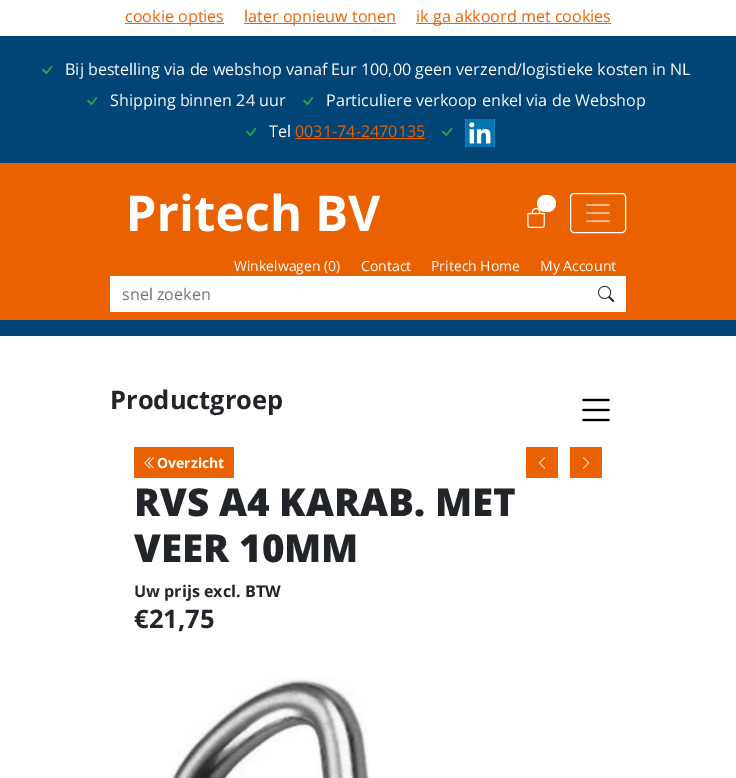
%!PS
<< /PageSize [736 778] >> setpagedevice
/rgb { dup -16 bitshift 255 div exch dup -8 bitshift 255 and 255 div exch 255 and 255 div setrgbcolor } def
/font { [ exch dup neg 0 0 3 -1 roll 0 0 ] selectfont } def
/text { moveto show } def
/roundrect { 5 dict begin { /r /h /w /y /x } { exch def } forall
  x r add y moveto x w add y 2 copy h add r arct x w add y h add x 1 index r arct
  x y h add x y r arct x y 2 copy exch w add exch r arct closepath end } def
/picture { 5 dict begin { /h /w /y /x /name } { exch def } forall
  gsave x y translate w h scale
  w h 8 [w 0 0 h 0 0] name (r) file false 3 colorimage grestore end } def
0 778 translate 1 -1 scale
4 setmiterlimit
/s1 { /OpenSans-Regular 16.15 font 16#E96100 rgb } def
/s2 { /OpenSans-Regular 16.15 font 16#FFFFFF rgb } def
/s3 { /OpenSans-Regular 14 font 16#FFFFFF rgb } def
/s4 { /OpenSans-Regular 16.15 font 16#6C757D rgb } def
/s5 { /OpenSans-Bold 25.5 font 16#212529 rgb } def
/s6 { /OpenSans-Bold 14 font 16#FFFFFF rgb } def
/s7 { /OpenSans-ExtraBold 38.5 font 16#212529 rgb } def
/s8 { /OpenSans-Bold 16.15 font 16#212529 rgb } def
16#FFFFFF rgb
0 0 736 778 rectfill
16#E96100 rgb
125 23 99 1 rectfill
s1
(cookie opties) 125 22 text
244 23 152 1 rectfill
(later opnieuw tonen) 244 22 text
416 23 195 1 rectfill
(ik ga akkoord met cookies) 416 22 text
16#004575 rgb
0 36 736 127 rectfill
(pic1.raw) 42 66 11 8 picture
s2
(Bij bestelling via de webshop vanaf Eur 100,00 geen verzend/logistieke kosten in NL) 65 75 text
(pic1.raw) 87 97 11 8 picture
(Shipping binnen 24 uur) 110 106 text
(pic1.raw) 303 97 11 8 picture
(Particuliere verkoop enkel via de Webshop) 326 106 text
(pic1.raw) 246 128 11 8 picture
(Tel) 269 137 text
s1
(0031-74-2470135) 295 137 text
295 138 130 1 rectfill
(pic1.raw) 442 128 11 8 picture
(pic2.raw) 465 119 30 28 picture
0 163 736 157 rectfill
(pic3.raw) 130 193 251 39 picture
(pic4.raw) 527 207 18 21 picture
16#FFFFFF rgb
537 195 19 17 8.5 roundrect fill
570.5 193.5 55 39 3.5 roundrect stroke
(pic5.raw) 586 204 25 19 picture
s3
(Winkelwagen \(0\)) 234 271 text
(Contact) 361 271 text
(Pritech Home) 431 271 text
(My Account) 540 271 text
110 276 516 36 rectfill
(pic6.raw) 598 285 17 17 picture
s4
(snel zoeken) 122 300 text
16#004575 rgb
0 320 736 16 rectfill
s5
(Productgroep) 110 409 text
(pic7.raw) 582 398 28 24 picture
16#E96100 rgb
134 447 100 31 rectfill
(pic8.raw) 144 457 10 12 picture
s6
(Overzicht) 157 468 text
16#E96100 rgb
526 447 32 31 rectfill
(pic9.raw) 539 457 7 12 picture
570 447 32 31 rectfill
(pic10.raw) 583 457 7 12 picture
s7
(RVS A4 KARAB. MET) 134 516 text
(VEER 10MM) 134 562 text
s8
(Uw prijs excl. BTW) 134 597 text
s5
(€21,75) 134 628 text
(pic11.raw) 170 677 199 101 picture
showpage
